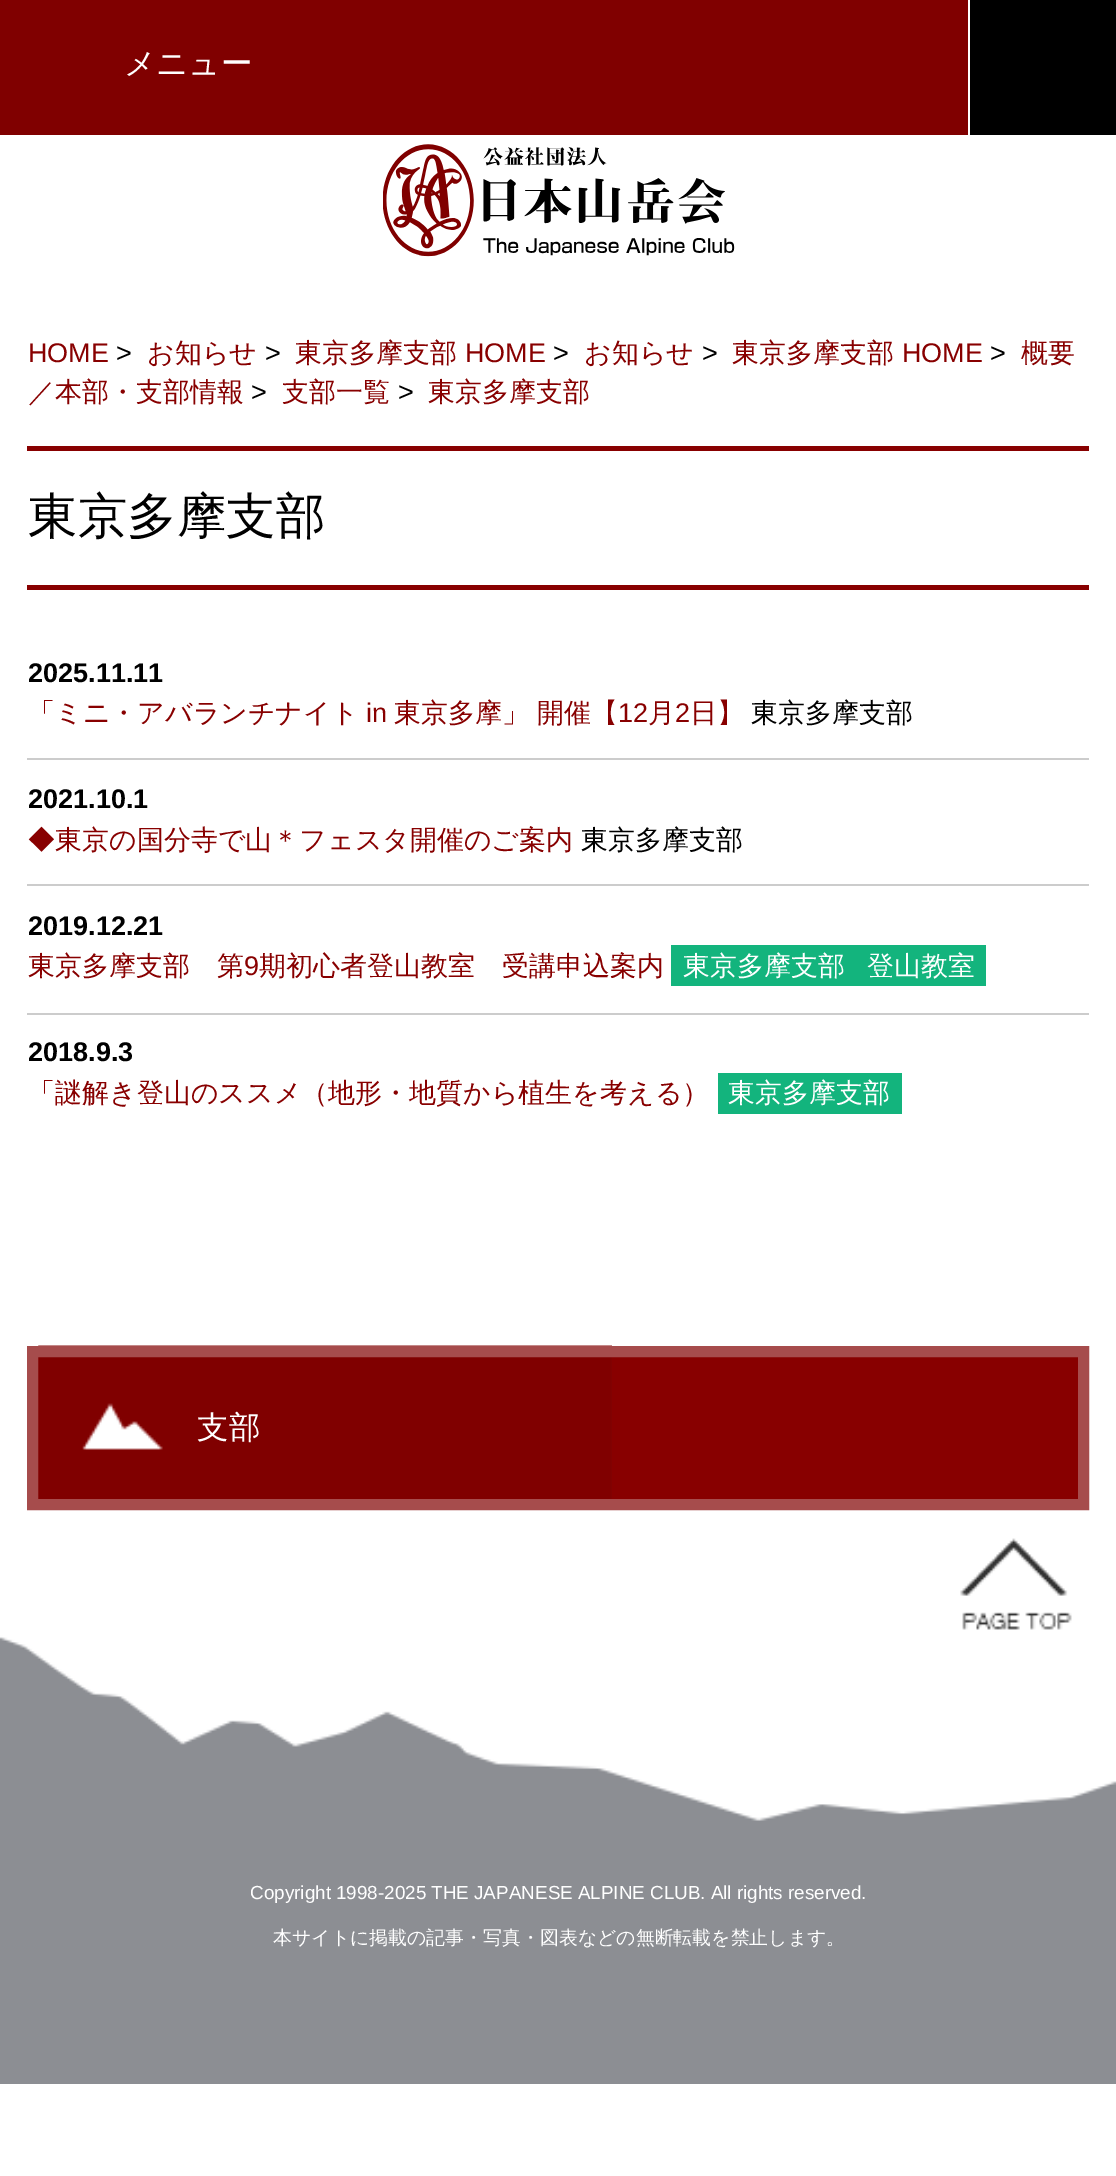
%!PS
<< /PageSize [1116 2176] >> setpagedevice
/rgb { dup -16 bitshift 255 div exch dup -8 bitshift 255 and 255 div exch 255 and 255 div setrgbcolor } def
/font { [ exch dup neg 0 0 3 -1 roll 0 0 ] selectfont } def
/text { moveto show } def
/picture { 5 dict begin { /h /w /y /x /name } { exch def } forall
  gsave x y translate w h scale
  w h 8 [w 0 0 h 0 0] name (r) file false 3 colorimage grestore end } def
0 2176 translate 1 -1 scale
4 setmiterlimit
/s1 { /WenQuanYiZenHei-Medium 31.5 font 16#FFFFFF rgb } def
/s2 { /LiberationSans-Regular 27 font 16#880000 rgb } def
/s3 { /LiberationSans-Regular 27 font 16#000000 rgb } def
/s4 { /WenQuanYiZenHei-Medium 27 font 16#880000 rgb } def
/s5 { /WenQuanYiZenHei-Medium 49.5 font 16#000000 rgb } def
/s6 { /LiberationSans-Bold 27 font 16#000000 rgb } def
/s7 { /WenQuanYiZenHei-Medium 27 font 16#000000 rgb } def
/s8 { /WenQuanYiZenHei-Medium 27 font 16#FFFFFF rgb } def
/s9 { /WenQuanYiZenHei-Medium 18.9 font 16#FFFFFF rgb } def
16#FFFFFF rgb
0 0 1116 2176 rectfill
16#800000 rgb
0 0 968 135 rectfill
s1
(メニュー) 124 74 text
16#000000 rgb
970 0 146 135 rectfill
(pic1.raw) 383 144 352 113 picture
s2
(HOME) 28 362 text
s3
(>) 116 362 text
s4
(お知らせ) 147 362 text
s3
(>) 265 362 text
s4
(東京多摩支部) 295 362 text
s2
(HOME) 465 362 text
s3
(>) 553 362 text
s4
(お知らせ) 584 362 text
s3
(>) 702 362 text
s4
(東京多摩支部) 732 362 text
s2
(HOME) 902 362 text
s3
(>) 990 362 text
s4
(概要) 1021 362 text
(／本部・支部情報) 28 401 text
s3
(>) 251 401 text
s4
(支部一覧) 282 401 text
s3
(>) 398 401 text
s4
(東京多摩支部) 428 401 text
27 446 1062 5 rectfill
27 585 1062 5 rectfill
s5
(東京多摩支部) 28 533 text
s6
(2025.11.11) 28 682 text
s4
(「ミニ・アバランチナイト) 28 722 text
s2
(in) 366 722 text
s4
(東京多摩」 開催【) 394 722 text
s2
(12) 618 722 text
s4
(月) 648 722 text
s2
(2) 675 722 text
s4
(日】) 690 722 text
s7
(東京多摩支部) 751 722 text
16#CCCCCC rgb
27 758 1062 2 rectfill
s6
(2021.10.1) 28 808 text
s4
(◆東京の国分寺で山＊フェスタ開催のご案内) 28 849 text
s7
(東京多摩支部) 581 849 text
16#CCCCCC rgb
27 884 1062 2 rectfill
s6
(2019.12.21) 28 935 text
s4
(東京多摩支部　第) 28 975 text
s2
(9) 244 975 text
s4
(期初心者登山教室　受講申込案内) 259 975 text
16#13B47D rgb
671 945 315 41 rectfill
s8
(東京多摩支部) 683 975 text
(登山教室) 867 975 text
16#CCCCCC rgb
27 1013 1062 2 rectfill
s6
(2018.9.3) 28 1061 text
s4
(「謎解き登山のススメ（地形・地質から植生を考える）) 28 1102 text
16#13B47D rgb
718 1073 184 41 rectfill
s8
(東京多摩支部) 728 1102 text
16#880000 rgb
38 1357 1040 142 rectfill
(pic2.raw) 38 1345 574 154 picture
16#A64C4C rgb
11 setlinewidth
32.5 1351.5 1051 153 rectstroke
s1
(支部) 197 1438 text
(pic3.raw) 960 1538 112 92 picture
16#8C8E93 rgb
0 1821 1116 263 rectfill
(pic4.raw) 0 1634 1116 187 picture
/LiberationSans-Regular 18.9 font
16#FFFFFF rgb
250 1899 moveto -0.25 0 32 (Copyright 1998-2025 THE JAPANESE ALPINE CLUB. All rights reserved.) widthshow
s9
(本サイトに掲載の記事・写真・図表などの無断転載を禁止します。) 273 1944 text
showpage
